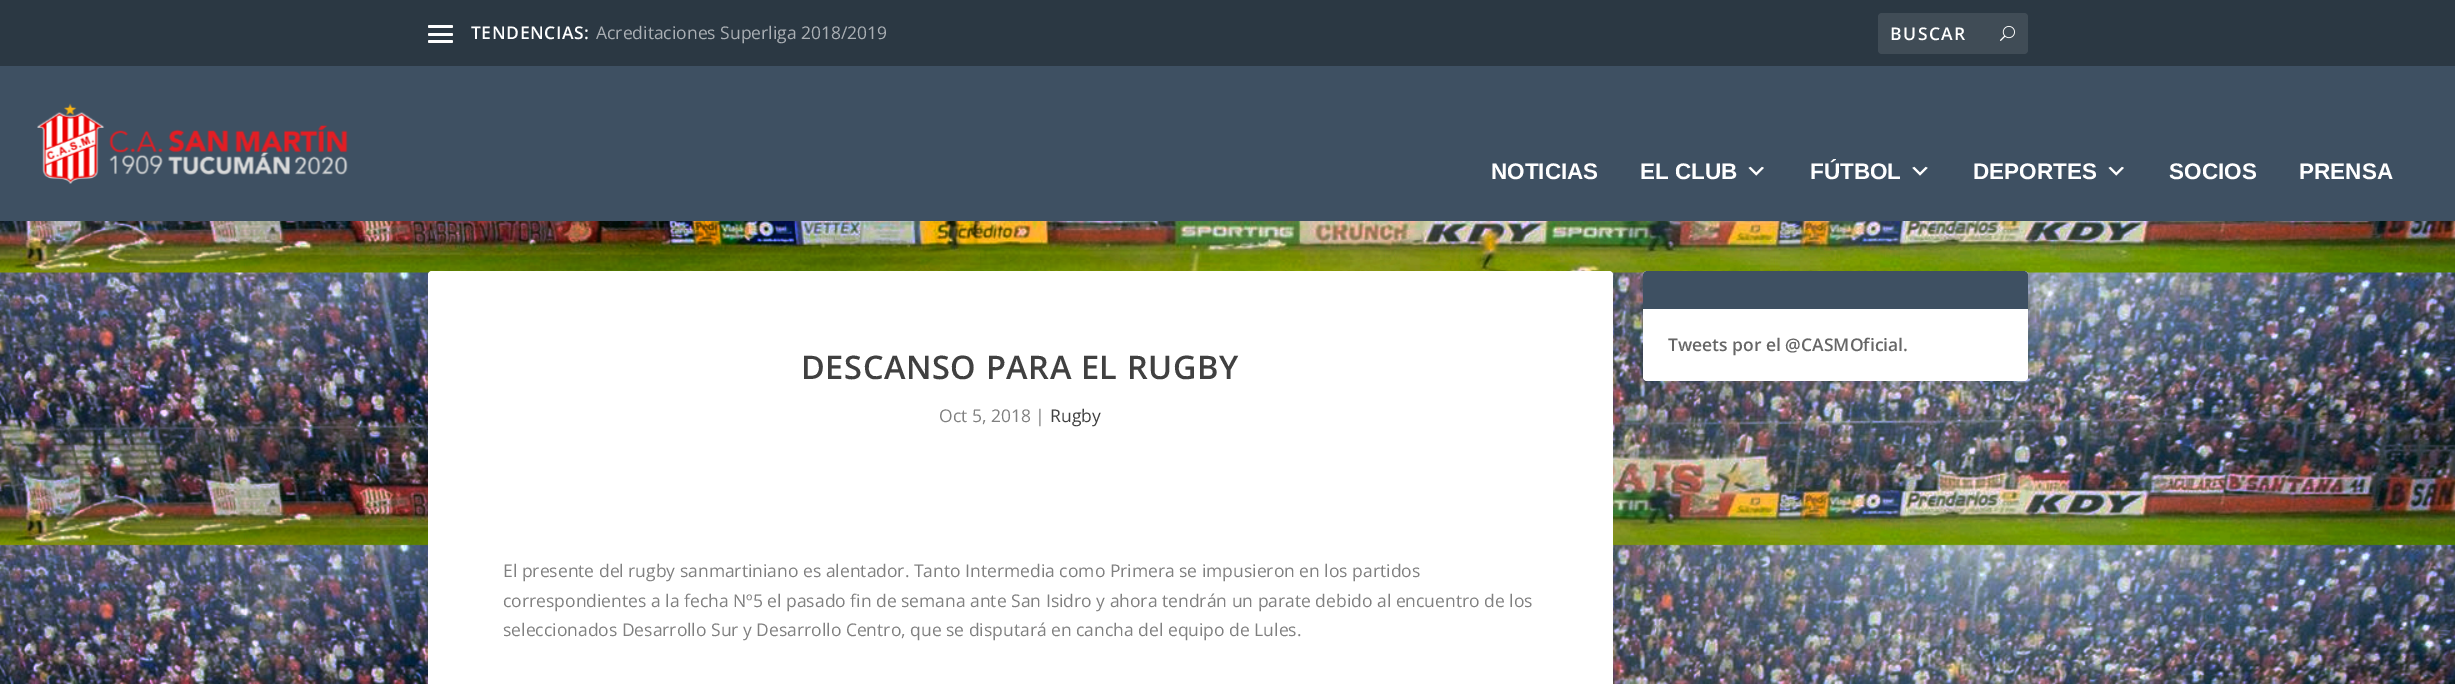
%!PS
<< /PageSize [2455 684] /PageUsesTransparency true >> setpagedevice
/rgb { dup -16 bitshift 255 div exch dup -8 bitshift 255 and 255 div exch 255 and 255 div setrgbcolor } def
/font { [ exch dup neg 0 0 3 -1 roll 0 0 ] selectfont } def
/text { moveto show } def
/alpha { dup .setfillconstantalpha .setstrokeconstantalpha } def
/roundrect { 5 dict begin { /r /h /w /y /x } { exch def } forall
  x r add y moveto x w add y 2 copy h add r arct x w add y h add x 1 index r arct
  x y h add x y r arct x y 2 copy exch w add exch r arct closepath end } def
/shadow { 12 dict begin { /a /b /q /h /w /y /x } { exch def } forall gsave /was 0 def
  9 -2 -9 { dup b mul 4 div /e exch def 1 sub .425 mul 2.718 exch exp 1 add a .99 .min exch div /now exch def
    1 1 now sub 1 was sub div sub alpha /was now def
    w h .min e 2 mul add 0 gt { x e sub y e sub w e 2 mul add h e 2 mul add
      q e add b .6 mul add w h .min 2 div e add .min 0 .max roundrect fill } if } for grestore end } def
/picture { 5 dict begin { /h /w /y /x /name } { exch def } forall
  gsave x y translate w h scale
  w h 8 [w 0 0 h 0 0] name (r) file false 3 colorimage grestore end } def
0 .pushpdf14devicefilter
0 684 translate 1 -1 scale
4 setmiterlimit
/s1 { /OpenSans-Regular 17.5 font 16#AAAFB4 rgb } def
/s2 { /LiberationSans-Bold 22.5 font 16#FFFFFF rgb } def
/s3 { /OpenSans-SemiBold 17.5 font 16#666666 rgb } def
/s4 { /OpenSans-Regular 17.5 font 16#808080 rgb } def
/s5 { /OpenSans-Regular 17.5 font 16#404040 rgb } def
16#FFFFFF rgb
0 0 2455 684 rectfill
(pic1.raw) 0 221 2455 463 picture
16#2B3843 rgb
0 0 2455 66 rectfill
16#FFFFFF rgb
428 25 25 3 1.5 roundrect fill
428 33 25 3 1.5 roundrect fill
428 40 25 3 1.5 roundrect fill
/OpenSans-SemiBold 17.5 font
471 39 moveto 0.6 0 (TENDENCIAS:) ashow
s1
(Acreditaciones Superliga 2018/2019) 596 39 text
16#404C56 rgb
1878 13 150 41 4 roundrect fill
/OpenSans-SemiBold 17.5 font
16#FFFFFF rgb
1890 40 moveto 1.5 0 (BUSCAR) ashow
(pic2.raw) 2000 25 15 16 picture
16#3E5062 rgb
0 66 2455 155 rectfill
(pic3.raw) 37 103 311 81 picture
s2
(NOTICIAS) 1491 179 text
(EL CLUB) 1640 179 text
(pic4.raw) 1748 166 16 10 picture
(FÚTBOL) 1810 179 text
(pic5.raw) 1912 166 16 10 picture
(DEPORTES) 1973 179 text
(pic4.raw) 2108 166 16 10 picture
(SOCIOS) 2169 179 text
(PRENSA) 2299 179 text
16#000000 rgb
1643 273 385 110 4 2 0.1 shadow
16#FFFFFF rgb
1643 271 385 110 4 roundrect fill
16#3E5062 rgb
1647 271 moveto 2024 271 lineto 2026 271 2028 273 2028 275 curveto 2028 309 lineto 1643 309 lineto 1643 275 lineto 1643 273 1645 271 1647 271 curveto closepath fill
s3
(Tweets por el @CASMOficial.) 1668 351 text
16#FFFFFF rgb
428 271 1185 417 4 roundrect fill
/OpenSans-SemiBold 32.5 font
16#404040 rgb
801 379 moveto 0.6 0 (DESCANSO PARA EL RUGBY) ashow
s4
(Oct 5, 2018 |) 939 422 text
s5
(Rugby) 1050 422 text
s4
(El presente del rugby sanmartiniano es alentador. Tanto Intermedia como Primera se impusieron en los partidos) 503 577 text
(correspondientes a la fecha Nº5 el pasado fin de semana ante San Isidro y ahora tendrán un parate debido al encuentro de los) 503 607 text
(seleccionados Desarrollo Sur y Desarrollo Centro, que se disputará en cancha del equipo de Lules.) 503 636 text
.poppdf14devicefilter showpage
